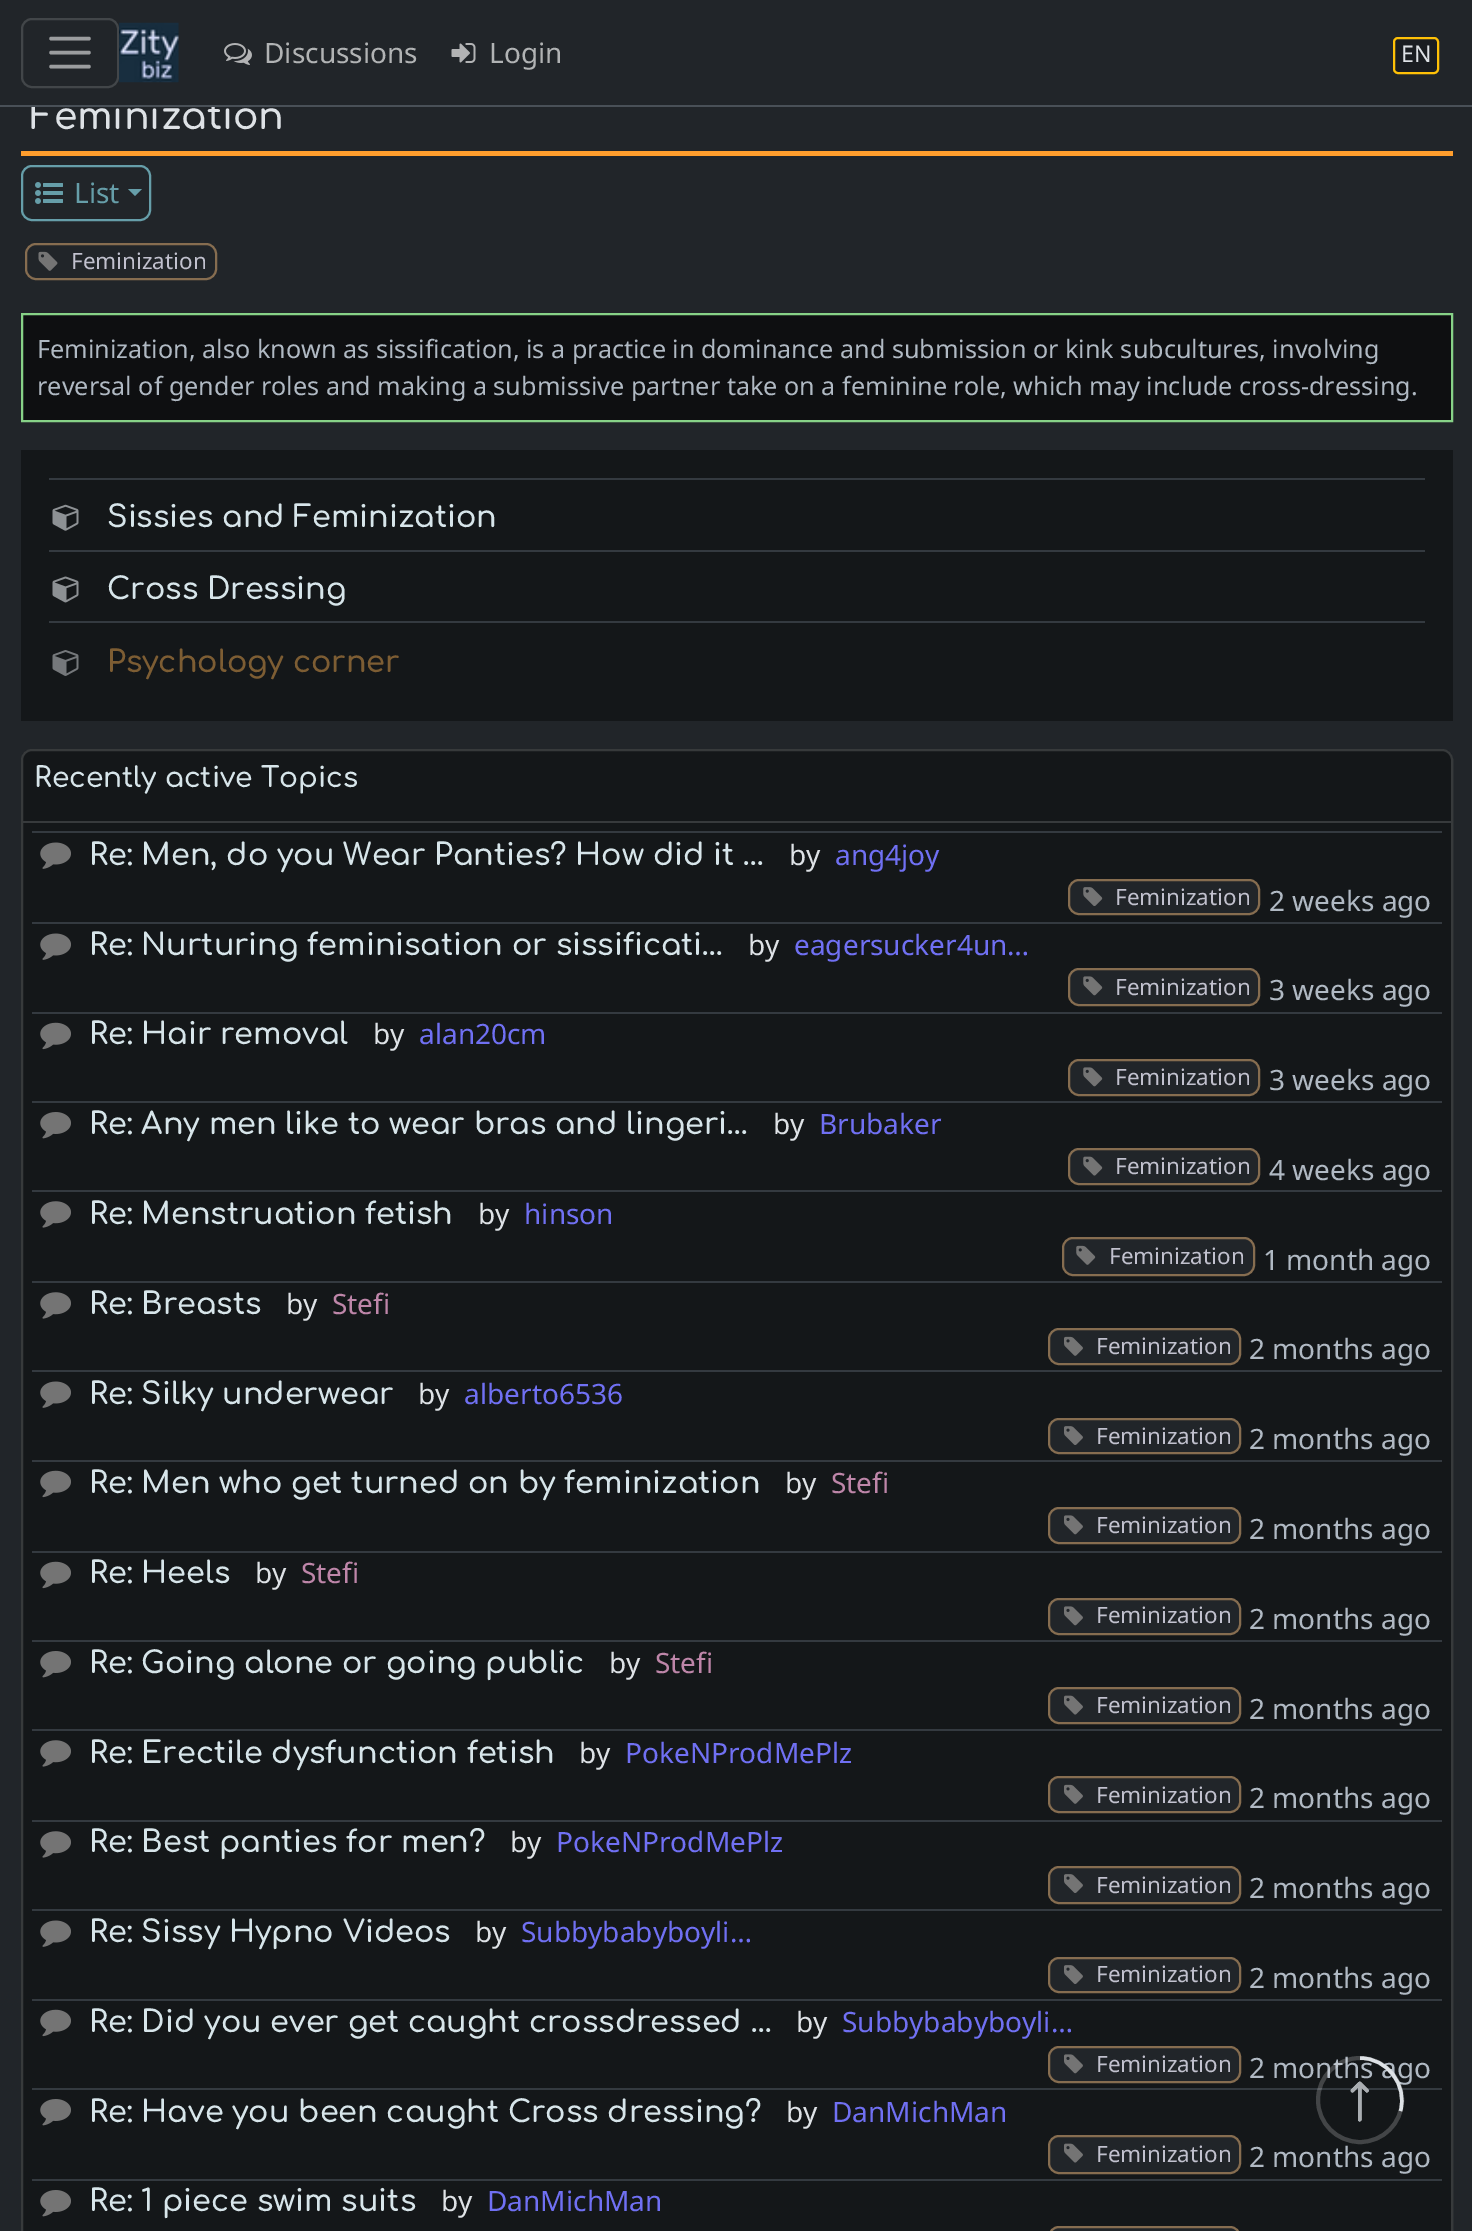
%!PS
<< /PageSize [1472 2231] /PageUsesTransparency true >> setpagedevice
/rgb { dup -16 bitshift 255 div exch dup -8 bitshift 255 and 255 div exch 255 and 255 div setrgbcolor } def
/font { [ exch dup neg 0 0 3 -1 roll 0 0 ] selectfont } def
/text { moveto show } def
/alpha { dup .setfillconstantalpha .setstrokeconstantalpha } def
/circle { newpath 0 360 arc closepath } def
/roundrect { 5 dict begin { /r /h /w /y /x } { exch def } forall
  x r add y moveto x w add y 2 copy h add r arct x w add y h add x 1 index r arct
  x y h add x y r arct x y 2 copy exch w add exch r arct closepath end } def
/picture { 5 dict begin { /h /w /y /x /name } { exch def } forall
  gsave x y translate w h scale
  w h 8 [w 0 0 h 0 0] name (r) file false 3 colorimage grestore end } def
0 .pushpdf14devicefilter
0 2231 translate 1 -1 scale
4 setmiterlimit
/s1 { /Comfortaa-SemiBold 37.75 font 16#DEE2E6 rgb } def
/s2 { /NotoSans-Regular 28 font 16#B1B3B4 rgb } def
/s3 { /NotoSans-Regular 23 font 16#DEE2E6 rgb } def
/s4 { /NotoSans-Regular 28 font 16#669EA9 rgb } def
/s5 { /NotoSans-Regular 22.5 font 16#C1C1CE rgb } def
/s6 { /NotoSans-Regular 25.2 font 16#B0B9C3 rgb } def
/s7 { /Comfortaa-SemiBold 30.25 font 16#D7E5EA rgb } def
/s8 { /Comfortaa-SemiBold 30.25 font 16#7D5D33 rgb } def
/s9 { /Comfortaa-SemiBold 28 font 16#D7E5EA rgb } def
/s10 { /NotoSans-Regular 28 font 16#DEE2E6 rgb } def
/s11 { /NotoSans-Regular 28 font 16#7070F3 rgb } def
/s12 { /NotoSans-Regular 28 font 16#B0B9C3 rgb } def
/s13 { /NotoSans-Regular 28 font 16#BE86A9 rgb } def
/s14 { /Comfortaa-Regular 46 font 16#DEE2E6 rgb } def
/s15 { /Comfortaa-Regular 46 font 16#AAAEB2 rgb } def
16#212529 rgb
0 0 1472 2231 rectfill
s1
(Feminization) 30 129 text
16#212529 rgb
31 99 199 6 rectfill
16#495057 rgb
0 105 1472 2 rectfill
16#424649 rgb
2 setlinewidth
22 19 96 68 10 roundrect stroke
16#9B9D9F rgb
3.5 setlinewidth
1 setlinecap
51 38.5 moveto 89 38.5 lineto 51 52.5 moveto 89 52.5 lineto 51 66.5 moveto 89 66.5 lineto stroke
(pic1.raw) 119 22 60 61 picture
(pic2.raw) 224 43 28 22 picture
s2
(Discussions) 264 63 text
(pic3.raw) 451 43 25 20 picture
(Login) 489 63 text
16#1A1D21 rgb
1394 38 44 35 4 roundrect gsave fill grestore
16#FFC107 rgb
2 setlinewidth
0 setlinecap
stroke
s3
(EN) 1401 62 text
16#FF9E2D rgb
21 151 1432 5 rectfill
16#669EA9 rgb
22 166 128 54 10 roundrect stroke
(pic4.raw) 35 182 28 22 picture
s4
(List) 74 203 text
128 189 moveto 142 189 lineto 135 196 lineto closepath fill
16#866D50 rgb
26 244 190 35 10 roundrect stroke
(pic5.raw) 38 251 20 20 picture
s5
(Feminization) 71 269 text
16#0E0F11 rgb
22 314 moveto 1452 314 lineto 1452 421 lineto 22 421 lineto closepath gsave fill grestore
16#87D287 rgb
stroke
s6
(Feminization, also known as sissification, is a practice in dominance and submission or kink subcultures, involving) 37 358 text
(reversal of gender roles and making a submissive partner take on a feminine role, which may include cross-dressing.) 37 395 text
16#141719 rgb
21 450 1432 271 rectfill
16#343A40 rgb
49 478 1376 2 rectfill
(pic6.raw) 52 504 27 27 picture
s7
(Sissies and Feminization) 107 527 text
16#343A40 rgb
49 550 1376 2 rectfill
(pic7.raw) 52 576 27 27 picture
s7
(Cross Dressing) 107 599 text
16#343A40 rgb
49 621 1376 2 rectfill
(pic8.raw) 52 650 27 26 picture
s8
(Psychology corner) 107 672 text
16#141719 rgb
21 749 1432 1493 11 roundrect fill
0.15 alpha
16#FFFFFF rgb
22 750 1430 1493 10 roundrect stroke
1 alpha
16#373A3C rgb
23 821 1428 2 rectfill
s9
(Recently active Topics) 34 787 text
16#343A40 rgb
32 831 1410 2 rectfill
(pic9.raw) 40 842 31 27 picture
s7
(Re: Men, do you Wear Panties? How did it …) 89 865 text
s10
(by) 789 865 text
s11
(ang4joy) 835 865 text
16#212529 rgb
1069 880 190 34 10 roundrect gsave fill grestore
16#866D50 rgb
stroke
(pic10.raw) 1083 887 20 19 picture
s5
(Feminization) 1115 905 text
s12
(2 weeks ago) 1269 911 text
16#343A40 rgb
32 922 1410 2 rectfill
(pic9.raw) 40 933 31 27 picture
s7
(Re: Nurturing feminisation or sissificati…) 89 955 text
s10
(by) 748 955 text
s11
(eagersucker4un…) 794 955 text
16#212529 rgb
1069 969 190 36 10 roundrect gsave fill grestore
16#866D50 rgb
stroke
(pic11.raw) 1083 976 20 20 picture
s5
(Feminization) 1115 995 text
s12
(3 weeks ago) 1269 1000 text
16#343A40 rgb
32 1012 1410 2 rectfill
(pic12.raw) 40 1022 31 28 picture
s7
(Re: Hair removal) 89 1044 text
s10
(by) 373 1044 text
s11
(alan20cm) 419 1044 text
16#212529 rgb
1069 1060 190 35 10 roundrect gsave fill grestore
16#866D50 rgb
stroke
(pic11.raw) 1083 1067 20 20 picture
s5
(Feminization) 1115 1085 text
s12
(3 weeks ago) 1269 1090 text
16#343A40 rgb
32 1101 1410 2 rectfill
(pic13.raw) 40 1112 31 27 picture
s7
(Re: Any men like to wear bras and lingeri…) 89 1134 text
s10
(by) 773 1134 text
s11
(Brubaker) 819 1134 text
16#212529 rgb
1069 1149 190 35 10 roundrect gsave fill grestore
16#866D50 rgb
stroke
(pic14.raw) 1083 1156 20 20 picture
s5
(Feminization) 1115 1174 text
s12
(4 weeks ago) 1269 1180 text
16#343A40 rgb
32 1190 1410 2 rectfill
(pic15.raw) 40 1201 31 27 picture
s7
(Re: Menstruation fetish) 89 1224 text
s10
(by) 478 1224 text
s11
(hinson) 524 1224 text
16#212529 rgb
1063 1238 191 37 10 roundrect gsave fill grestore
16#866D50 rgb
stroke
(pic16.raw) 1076 1245 20 20 picture
s5
(Feminization) 1109 1264 text
s12
(1 month ago) 1263 1270 text
16#343A40 rgb
32 1281 1410 2 rectfill
(pic15.raw) 40 1292 31 27 picture
s7
(Re: Breasts) 89 1314 text
s10
(by) 286 1314 text
s13
(Stefi) 332 1314 text
16#212529 rgb
1049 1329 191 35 10 roundrect gsave fill grestore
16#866D50 rgb
stroke
(pic17.raw) 1064 1336 19 20 picture
s5
(Feminization) 1096 1354 text
s12
(2 months ago) 1249 1359 text
16#343A40 rgb
32 1370 1410 2 rectfill
(pic9.raw) 40 1381 31 27 picture
s7
(Re: Silky underwear) 89 1404 text
s10
(by) 418 1404 text
s11
(alberto6536) 464 1404 text
16#212529 rgb
1049 1419 191 34 10 roundrect gsave fill grestore
16#866D50 rgb
stroke
(pic18.raw) 1064 1426 19 19 picture
s5
(Feminization) 1096 1444 text
s12
(2 months ago) 1249 1449 text
16#343A40 rgb
32 1460 1410 2 rectfill
(pic12.raw) 40 1470 31 28 picture
s7
(Re: Men who get turned on by feminization) 89 1493 text
s10
(by) 785 1493 text
s13
(Stefi) 831 1493 text
16#212529 rgb
1049 1508 191 35 10 roundrect gsave fill grestore
16#866D50 rgb
stroke
(pic19.raw) 1064 1515 19 20 picture
s5
(Feminization) 1096 1533 text
s12
(2 months ago) 1249 1539 text
16#343A40 rgb
32 1551 1410 2 rectfill
(pic12.raw) 40 1561 31 28 picture
s7
(Re: Heels) 89 1583 text
s10
(by) 255 1583 text
s13
(Stefi) 301 1583 text
16#212529 rgb
1049 1599 191 35 10 roundrect gsave fill grestore
16#866D50 rgb
stroke
(pic19.raw) 1064 1606 19 20 picture
s5
(Feminization) 1096 1623 text
s12
(2 months ago) 1249 1629 text
16#343A40 rgb
32 1640 1410 2 rectfill
(pic13.raw) 40 1651 31 27 picture
s7
(Re: Going alone or going public) 89 1673 text
s10
(by) 609 1673 text
s13
(Stefi) 655 1673 text
16#212529 rgb
1049 1688 191 35 10 roundrect gsave fill grestore
16#866D50 rgb
stroke
(pic20.raw) 1064 1695 19 20 picture
s5
(Feminization) 1096 1713 text
s12
(2 months ago) 1249 1719 text
16#343A40 rgb
32 1729 1410 2 rectfill
(pic15.raw) 40 1740 31 27 picture
s7
(Re: Erectile dysfunction fetish) 89 1763 text
s10
(by) 579 1763 text
s11
(PokeNProdMePlz) 625 1763 text
16#212529 rgb
1049 1777 191 35 10 roundrect gsave fill grestore
16#866D50 rgb
stroke
(pic17.raw) 1064 1784 19 20 picture
s5
(Feminization) 1096 1803 text
s12
(2 months ago) 1249 1808 text
16#343A40 rgb
32 1820 1410 2 rectfill
(pic15.raw) 40 1831 31 27 picture
s7
(Re: Best panties for men?) 89 1852 text
s10
(by) 510 1852 text
s11
(PokeNProdMePlz) 556 1852 text
16#212529 rgb
1049 1867 191 36 10 roundrect gsave fill grestore
16#866D50 rgb
stroke
(pic18.raw) 1064 1874 19 19 picture
s5
(Feminization) 1096 1893 text
s12
(2 months ago) 1249 1898 text
16#343A40 rgb
32 1909 1410 2 rectfill
(pic9.raw) 40 1920 31 27 picture
s7
(Re: Sissy Hypno Videos) 89 1942 text
s10
(by) 475 1942 text
s11
(Subbybabyboyli…) 521 1942 text
16#212529 rgb
1049 1958 191 34 10 roundrect gsave fill grestore
16#866D50 rgb
stroke
(pic18.raw) 1064 1965 19 19 picture
s5
(Feminization) 1096 1982 text
s12
(2 months ago) 1249 1988 text
16#343A40 rgb
32 1999 1410 2 rectfill
(pic12.raw) 40 2009 31 28 picture
s7
(Re: Did you ever get caught crossdressed …) 89 2032 text
s10
(by) 796 2032 text
s11
(Subbybabyboyli…) 842 2032 text
16#212529 rgb
1049 2047 191 35 10 roundrect gsave fill grestore
16#866D50 rgb
stroke
(pic19.raw) 1064 2054 19 20 picture
s5
(Feminization) 1096 2072 text
s12
(2 months ago) 1249 2078 text
16#343A40 rgb
32 2088 1410 2 rectfill
(pic13.raw) 40 2099 31 27 picture
s7
(Re: Have you been caught Cross dressing?) 89 2122 text
s10
(by) 786 2122 text
s11
(DanMichMan) 832 2122 text
16#212529 rgb
1049 2136 191 37 10 roundrect gsave fill grestore
16#866D50 rgb
stroke
(pic20.raw) 1064 2143 19 20 picture
s5
(Feminization) 1096 2162 text
s12
(2 months ago) 1249 2167 text
16#343A40 rgb
32 2179 1410 2 rectfill
(pic13.raw) 40 2190 31 27 picture
s7
(Re: 1 piece swim suits) 89 2211 text
s10
(by) 441 2211 text
s11
(DanMichMan) 487 2211 text
16#212529 rgb
1049 2227 191 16 10 roundrect gsave fill grestore
16#866D50 rgb
stroke
0.2 alpha
16#FFFFFF rgb
4 setlinewidth
1360 2100 42 circle stroke
1 alpha
16#DEE2E6 rgb
3.4 setlinewidth
1360 2058 moveto 1387.5 2058 1407.5 2085 1400.5 2111 curveto stroke
s14
(↑) 1349 2114 text
s15
(↑) 1349 2114 text
.poppdf14devicefilter showpage
